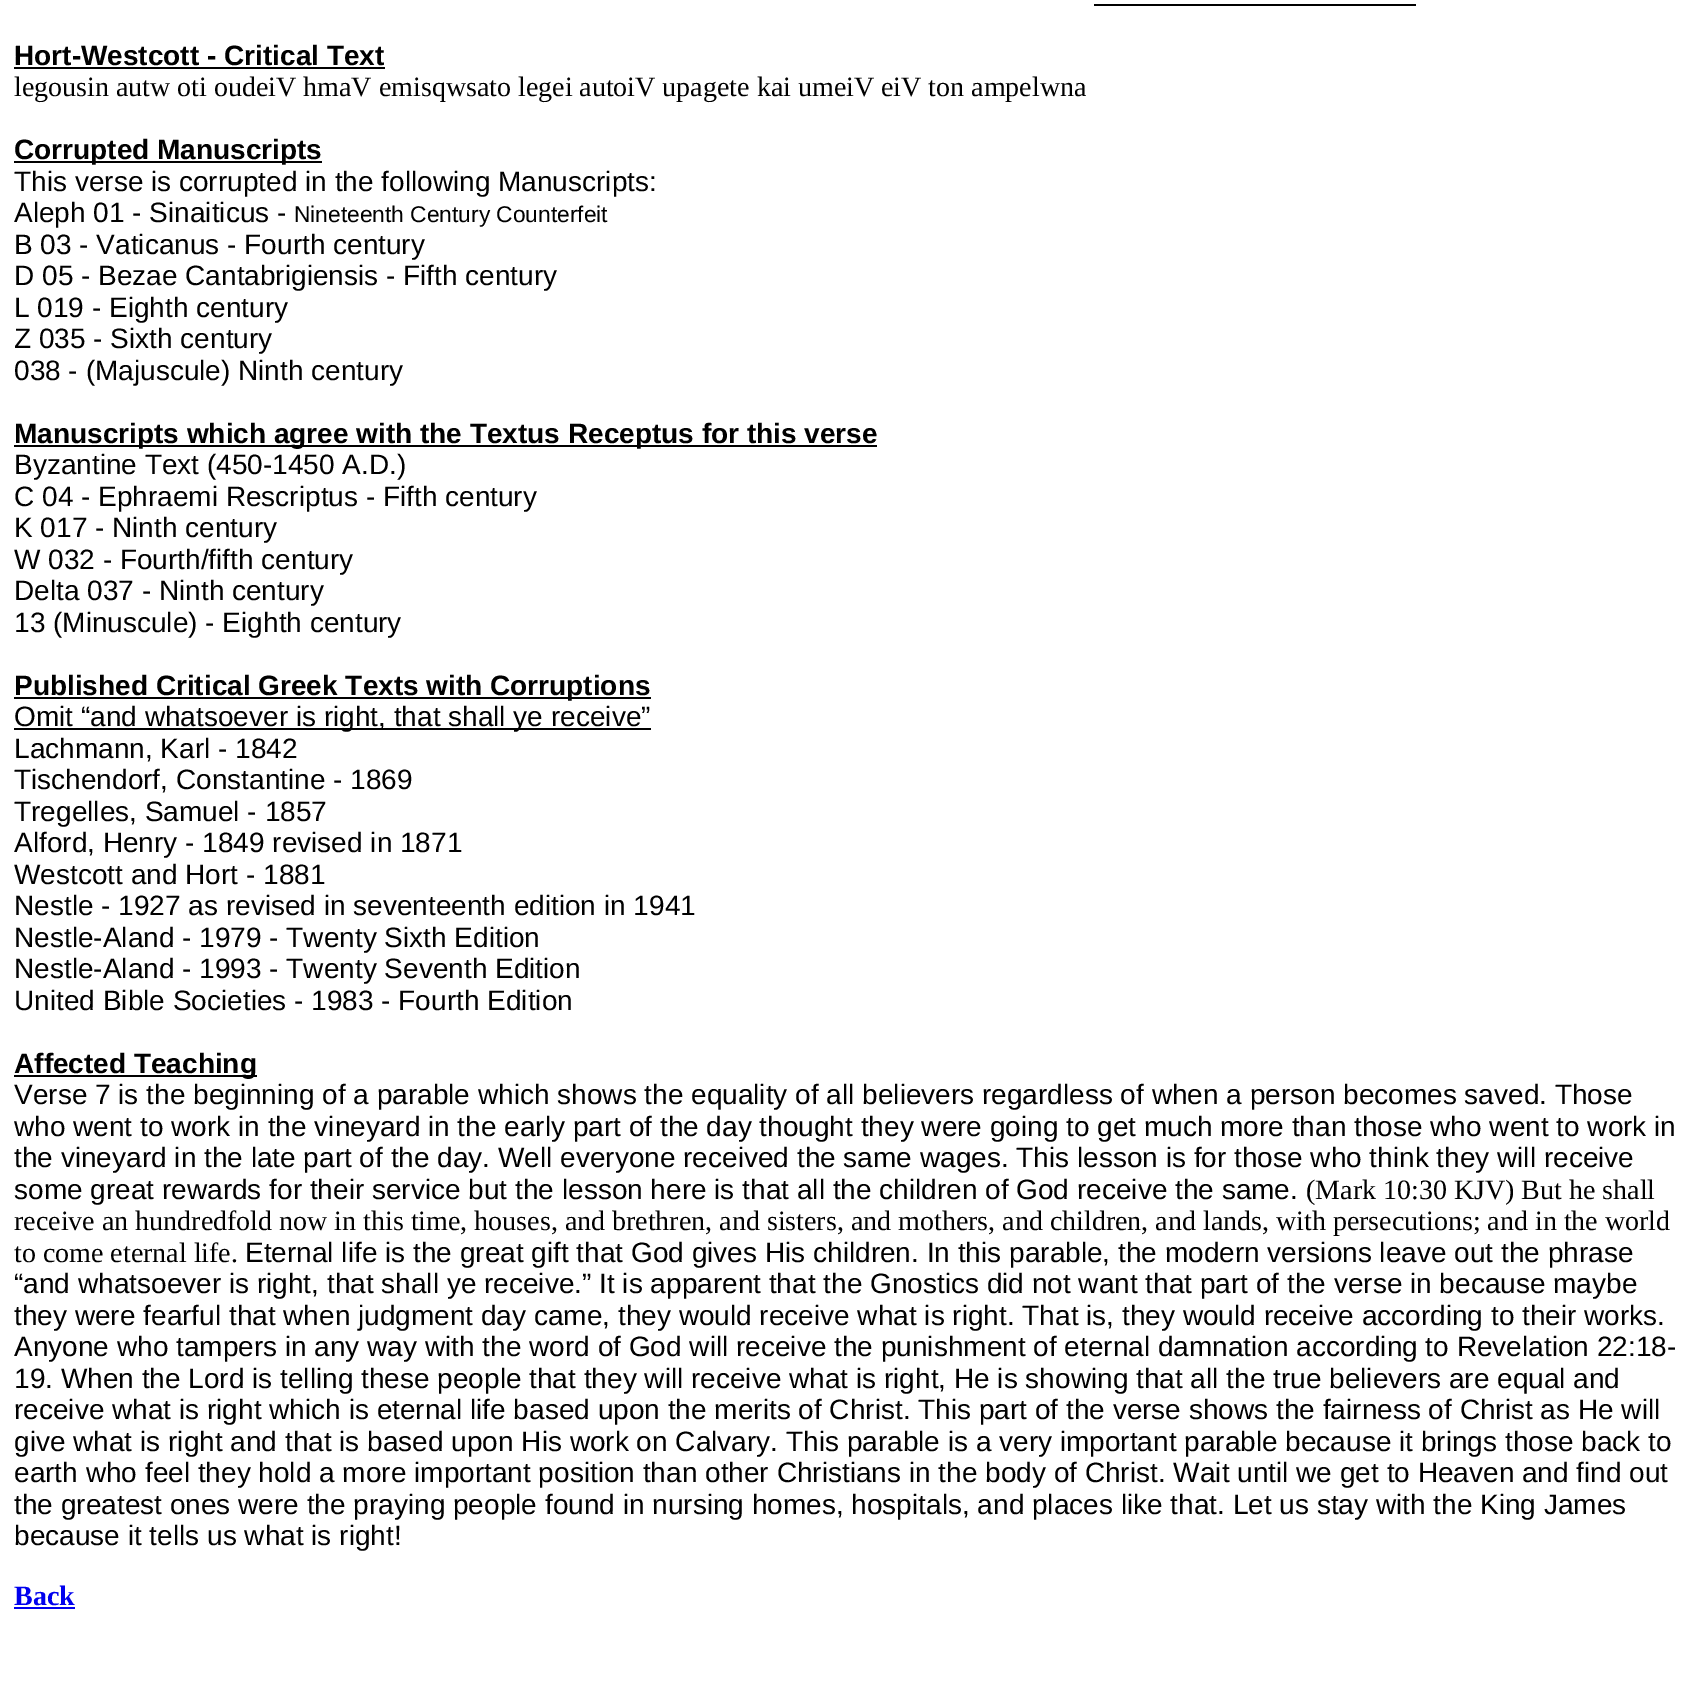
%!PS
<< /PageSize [1692 1699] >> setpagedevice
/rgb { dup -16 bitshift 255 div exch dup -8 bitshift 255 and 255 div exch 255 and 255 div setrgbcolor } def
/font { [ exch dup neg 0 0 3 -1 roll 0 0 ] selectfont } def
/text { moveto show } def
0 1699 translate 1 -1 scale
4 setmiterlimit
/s1 { /LiberationSans-Bold 28 font 16#000000 rgb } def
/s2 { /LiberationSerif-Regular 28 font 16#000000 rgb } def
/s3 { /LiberationSans-Regular 28 font 16#000000 rgb } def
/s4 { /LiberationSans-Regular 22.75 font 16#000000 rgb } def
/s5 { /LiberationSerif-Bold 28 font 16#0000EE rgb } def
16#FFFFFF rgb
0 0 1692 1699 rectfill
16#000000 rgb
1094 4 322 2 rectfill
s1
(Hort-Westcott - Critical Text) 14 65 text
14 67 371 2 rectfill
s2
(legousin autw oti oudeiV hmaV emisqwsato legei autoiV upagete kai umeiV eiV ton ampelwna) 14 96 text
14 161 308 2 rectfill
s1
(Corrupted Manuscripts) 14 159 text
s3
(This verse is corrupted in the following Manuscripts:) 14 191 text
(Aleph 01 - Sinaiticus -) 14 222 text
s4
(Nineteenth Century Counterfeit) 294 222 text
s3
(B 03 - Vaticanus - Fourth century) 14 254 text
(D 05 - Bezae Cantabrigiensis - Fifth century) 14 285 text
(L 019 - Eighth century) 14 317 text
(Z 035 - Sixth century) 14 348 text
(038 - \(Majuscule\) Ninth century) 14 380 text
14 445 863 2 rectfill
s1
(Manuscripts which agree with the Textus Receptus for this verse) 14 443 text
s3
(Byzantine Text \(450-1450 A.D.\)) 14 474 text
(C 04 - Ephraemi Rescriptus - Fifth century) 14 506 text
(K 017 - Ninth century) 14 537 text
(W 032 - Fourth/fifth century) 14 569 text
(Delta 037 - Ninth century) 14 600 text
(13 \(Minuscule\) - Eighth century) 14 632 text
14 697 637 2 rectfill
s1
(Published Critical Greek Texts with Corruptions) 14 695 text
14 728 637 2 rectfill
s3
(Omit “and whatsoever is right, that shall ye receive”) 14 726 text
(Lachmann, Karl - 1842) 14 758 text
(Tischendorf, Constantine - 1869) 14 789 text
(Tregelles, Samuel - 1857) 14 821 text
(Alford, Henry - 1849 revised in 1871) 14 852 text
(Westcott and Hort - 1881) 14 884 text
(Nestle - 1927 as revised in seventeenth edition in 1941) 14 915 text
(Nestle-Aland - 1979 - Twenty Sixth Edition) 14 947 text
(Nestle-Aland - 1993 - Twenty Seventh Edition) 14 978 text
(United Bible Societies - 1983 - Fourth Edition) 14 1010 text
14 1075 243 2 rectfill
s1
(Affected Teaching) 14 1073 text
s3
(Verse 7 is the beginning of a parable which shows the equality of all believers regardless of when a person becomes saved. Those) 14 1104 text
(who went to work in the vineyard in the early part of the day thought they were going to get much more than those who went to work in) 14 1136 text
(the vineyard in the late part of the day. Well everyone received the same wages. This lesson is for those who think they will receive) 14 1167 text
(some great rewards for their service but the lesson here is that all the children of God receive the same.) 14 1199 text
s2
(\(Mark 10:30 KJV\) But he shall) 1306 1199 text
(receive an hundredfold now in this time, houses, and brethren, and sisters, and mothers, and children, and lands, with persecutions; and in the world) 14 1230 text
(to come eternal life.) 14 1262 text
s3
(Eternal life is the great gift that God gives His children. In this parable, the modern versions leave out the phrase) 245 1262 text
(“and whatsoever is right, that shall ye receive.” It is apparent that the Gnostics did not want that part of the verse in because maybe) 14 1293 text
(they were fearful that when judgment day came, they would receive what is right. That is, they would receive according to their works.) 14 1325 text
(Anyone who tampers in any way with the word of God will receive the punishment of eternal damnation according to Revelation 22:18-) 14 1356 text
(19. When the Lord is telling these people that they will receive what is right, He is showing that all the true believers are equal and) 14 1388 text
(receive what is right which is eternal life based upon the merits of Christ. This part of the verse shows the fairness of Christ as He will) 14 1419 text
(give what is right and that is based upon His work on Calvary. This parable is a very important parable because it brings those back to) 14 1451 text
(earth who feel they hold a more important position than other Christians in the body of Christ. Wait until we get to Heaven and find out) 14 1482 text
(the greatest ones were the praying people found in nursing homes, hospitals, and places like that. Let us stay with the King James) 14 1514 text
(because it tells us what is right!) 14 1545 text
s5
(Back) 14 1605 text
14 1607 61 2 rectfill
showpage
